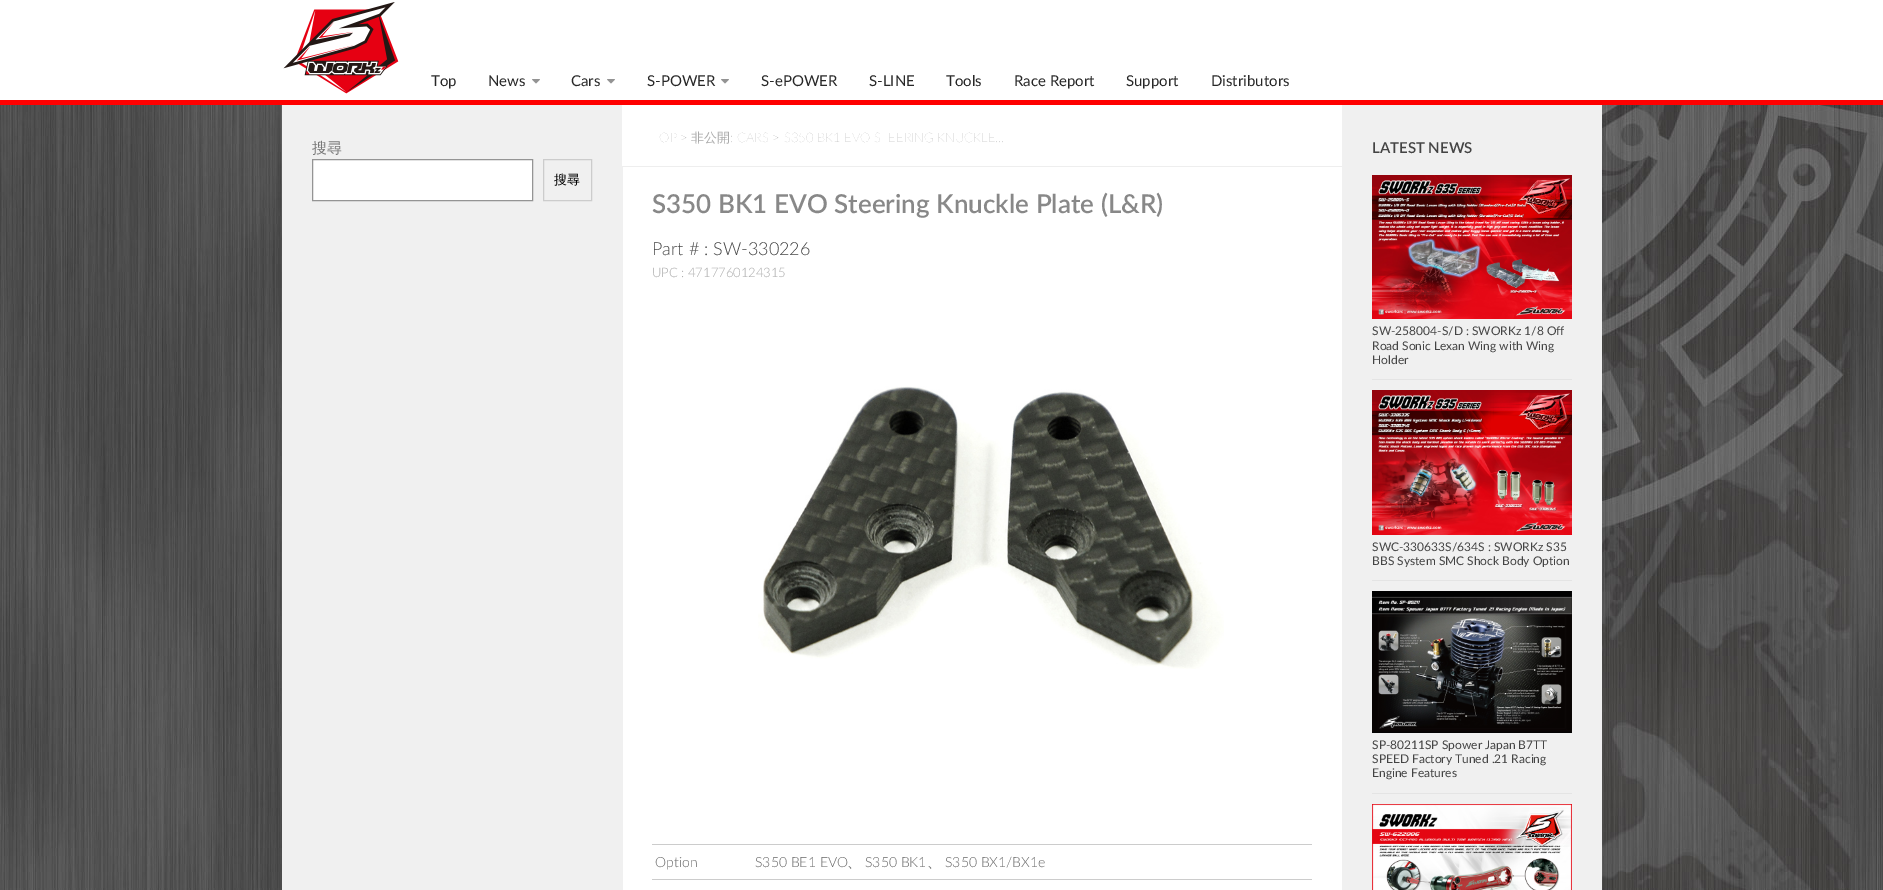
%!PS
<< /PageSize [1883 890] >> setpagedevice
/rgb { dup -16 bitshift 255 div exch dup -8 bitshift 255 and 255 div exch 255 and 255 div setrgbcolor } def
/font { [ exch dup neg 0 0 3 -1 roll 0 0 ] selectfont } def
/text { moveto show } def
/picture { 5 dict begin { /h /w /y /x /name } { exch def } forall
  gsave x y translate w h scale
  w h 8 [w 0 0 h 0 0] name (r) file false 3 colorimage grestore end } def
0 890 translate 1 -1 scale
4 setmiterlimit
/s1 { /Lato-Regular 15 font 16#282828 rgb } def
/s2 { /WenQuanYiZenHei-Medium 15 font 16#777777 rgb } def
/s3 { /WenQuanYiZenHei-Medium 13 font 16#000000 rgb } def
/s4 { /Lato-ExtraLight 13 font 16#AAAAAA rgb } def
/s5 { /Lato-ExtraLight 13 font 16#666666 rgb } def
/s6 { /WenQuanYiZenHei-Medium 13 font 16#AAAAAA rgb } def
/s7 { /Lato-SemiBold 26 font 16#888888 rgb } def
/s8 { /Lato-Light 18 font 16#444444 rgb } def
/s9 { /Lato-Light 13 font 16#AAAAAA rgb } def
/s10 { /Lato-Light 14 font 16#666666 rgb } def
/s11 { /WenQuanYiZenHei-Medium 14 font 16#666666 rgb } def
/s12 { /Lato-SemiBold 15 font 16#444444 rgb } def
/s13 { /Lato-Regular 12 font 16#444444 rgb } def
16#FFFFFF rgb
0 0 1883 890 rectfill
(pic1.raw) 0 105 1883 785 picture
16#FF0000 rgb
0 100 1883 5 rectfill
(pic2.raw) 283 2 116 92 picture
s1
(Top) 431 86 text
(News) 488 86 text
(pic3.raw) 532 79 8 5 picture
(Cars) 571 86 text
(pic3.raw) 607 79 8 5 picture
(S-POWER) 647 86 text
(pic3.raw) 721 79 8 5 picture
(S-ePOWER) 761 86 text
(S-LINE) 869 86 text
(Tools) 946 86 text
(Race Report) 1014 86 text
(Support) 1126 86 text
(Distributors) 1211 86 text
16#FFFFFF rgb
623 167 719 723 rectfill
16#F0F0F0 rgb
1342 105 260 785 rectfill
282 105 341 785 rectfill
s2
(搜尋) 312 153 text
16#FFFFFF rgb
312.5 159.5 moveto 532.5 159.5 lineto 532.5 200.5 lineto 312.5 200.5 lineto closepath gsave fill grestore
16#949494 rgb
stroke
16#CCCCCC rgb
543.5 159.5 48 41 rectstroke
s3
(搜尋) 554 184 text
16#FFFFFF rgb
622 105 720 61 rectfill
16#EEEEEE rgb
622 166 720 1 rectfill
s4
(TOP) 652 142 text
s5
(>) 680 142 text
s6
(非公開) 691 142 text
s4
(: CARS) 730 142 text
s5
(>) 772 142 text
s4
(S350 BK1 EVO STEERING KNUCKLE…) 784 142 text
s7
(S350 BK1 EVO Steering Knuckle Plate \(L&R\)) 652 213 text
s8
(Part # : SW-330226) 652 255 text
s9
(UPC : 4717760124315) 652 277 text
(pic4.raw) 758 386 466 283 picture
16#CCCCCC rgb
652 844 660 1 rectfill
652 879 660 1 rectfill
s10
(Option) 655 867 text
(S350 BE1 EVO) 755 867 text
s11
(、) 847 867 text
s10
(S350 BK1) 865 867 text
s11
(、) 927 867 text
s10
(S350 BX1/BX1e) 945 867 text
s12
(LATEST NEWS) 1372 153 text
16#E4E4E4 rgb
1372 379 200 1 rectfill
(pic5.raw) 1372 175 200 144 picture
s13
(SW-258004-S/D : SWORKz 1/8 Off) 1372 335 text
(Road Sonic Lexan Wing with Wing) 1372 350 text
(Holder) 1372 364 text
16#E4E4E4 rgb
1372 580 200 1 rectfill
(pic6.raw) 1372 390 200 145 picture
s13
(SWC-330633S/634S : SWORKz S35) 1372 551 text
(BBS System SMC Shock Body Option) 1372 565 text
16#E4E4E4 rgb
1372 793 200 1 rectfill
(pic7.raw) 1372 591 200 142 picture
s13
(SP-80211SP Spower Japan B7TT) 1372 749 text
(SPEED Factory Tuned .21 Racing) 1372 763 text
(Engine Features) 1372 777 text
(pic8.raw) 1372 804 200 86 picture
showpage
